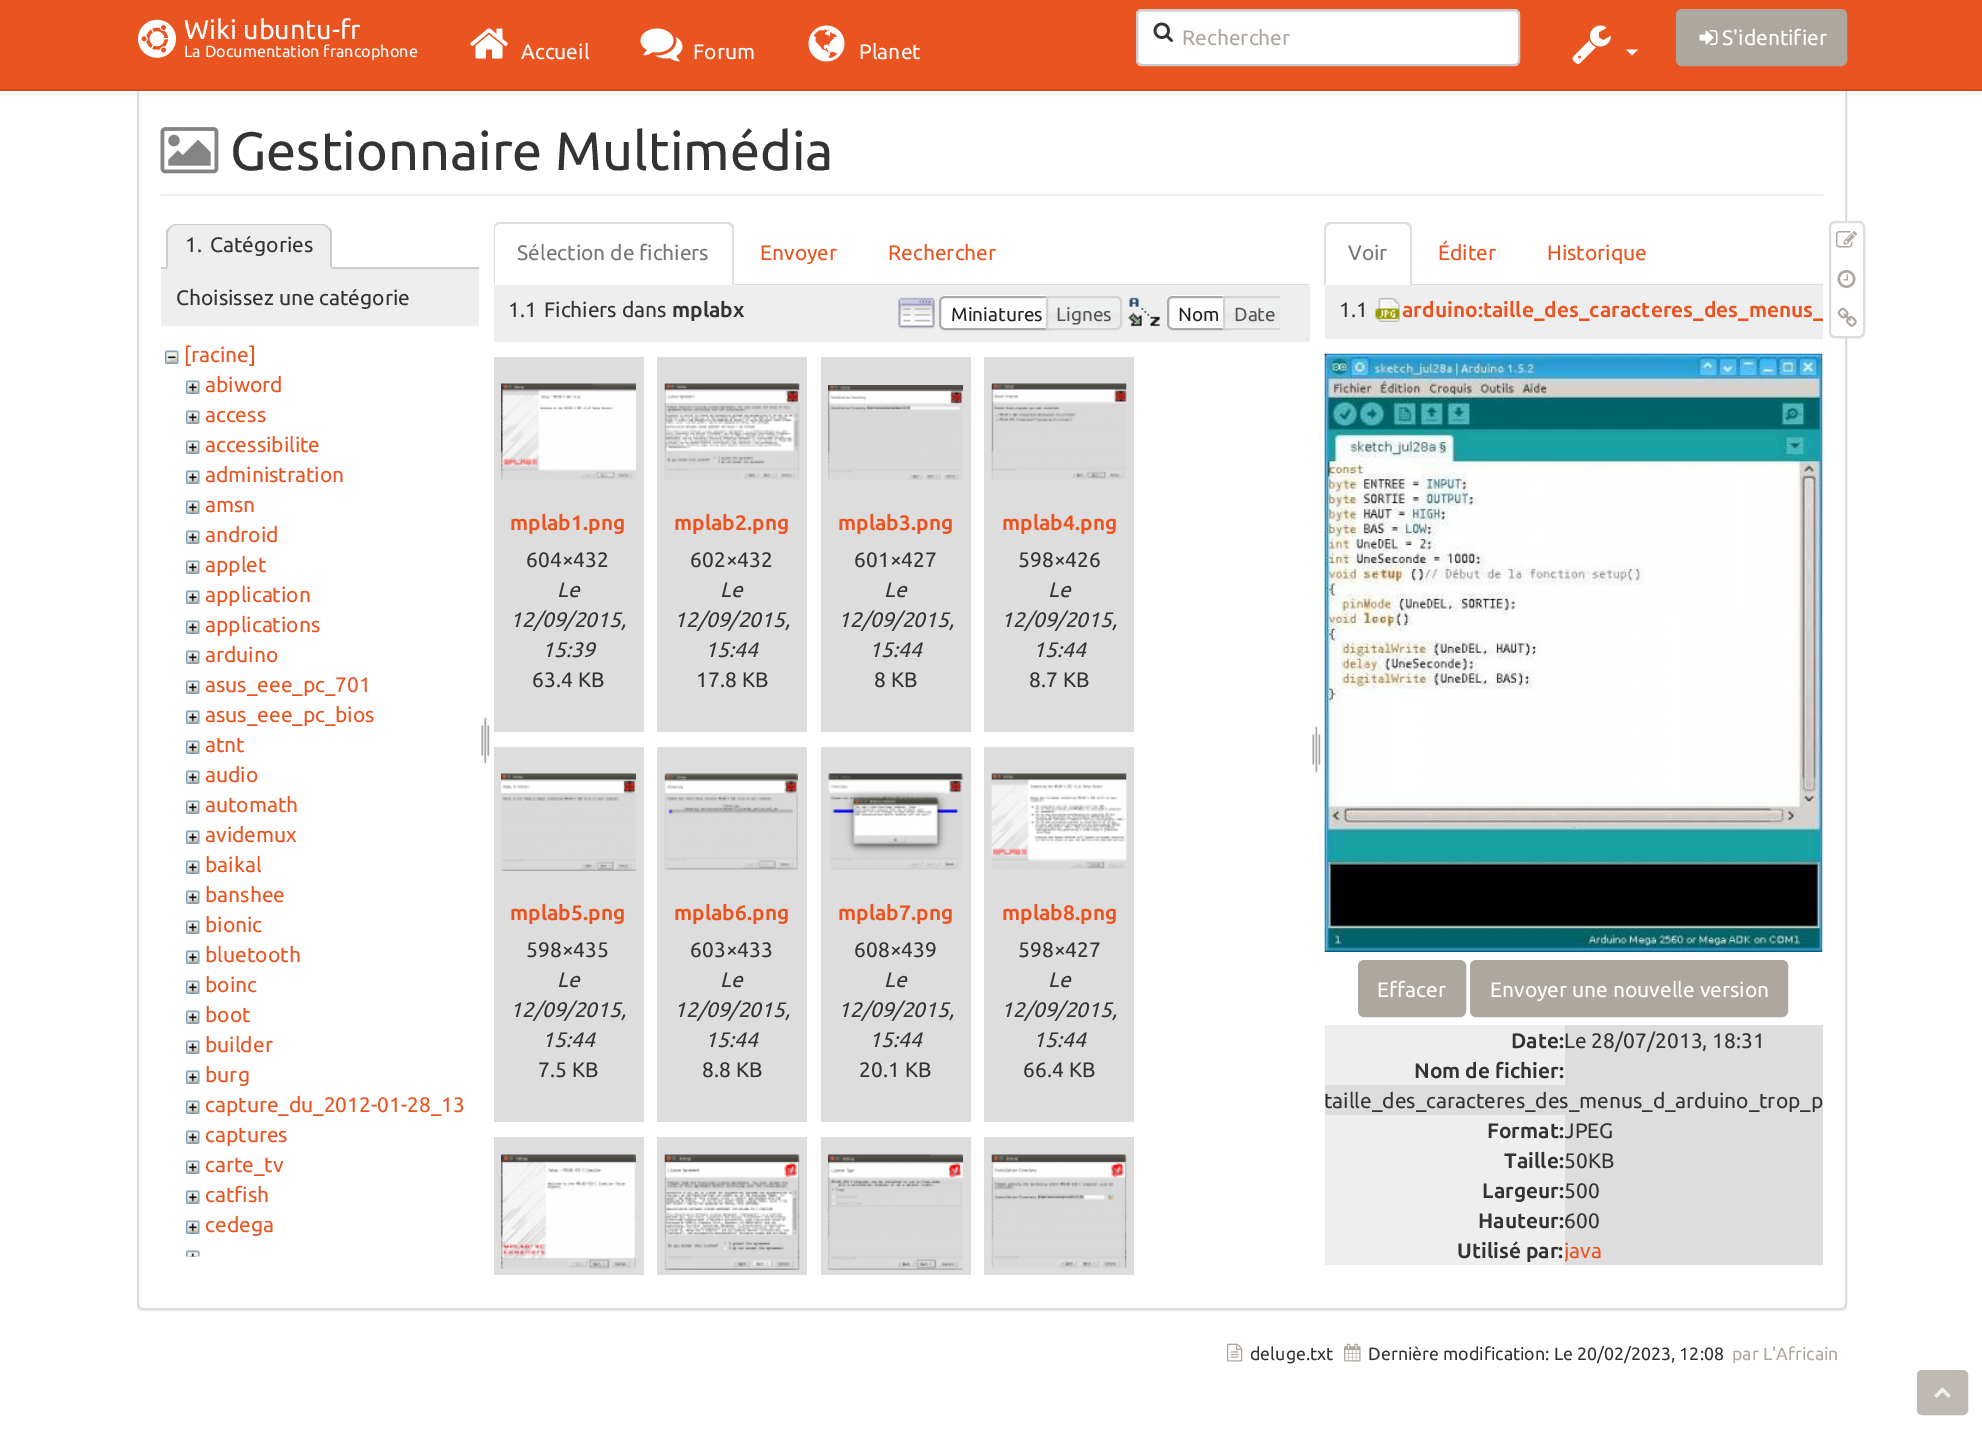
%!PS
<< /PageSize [1982 1429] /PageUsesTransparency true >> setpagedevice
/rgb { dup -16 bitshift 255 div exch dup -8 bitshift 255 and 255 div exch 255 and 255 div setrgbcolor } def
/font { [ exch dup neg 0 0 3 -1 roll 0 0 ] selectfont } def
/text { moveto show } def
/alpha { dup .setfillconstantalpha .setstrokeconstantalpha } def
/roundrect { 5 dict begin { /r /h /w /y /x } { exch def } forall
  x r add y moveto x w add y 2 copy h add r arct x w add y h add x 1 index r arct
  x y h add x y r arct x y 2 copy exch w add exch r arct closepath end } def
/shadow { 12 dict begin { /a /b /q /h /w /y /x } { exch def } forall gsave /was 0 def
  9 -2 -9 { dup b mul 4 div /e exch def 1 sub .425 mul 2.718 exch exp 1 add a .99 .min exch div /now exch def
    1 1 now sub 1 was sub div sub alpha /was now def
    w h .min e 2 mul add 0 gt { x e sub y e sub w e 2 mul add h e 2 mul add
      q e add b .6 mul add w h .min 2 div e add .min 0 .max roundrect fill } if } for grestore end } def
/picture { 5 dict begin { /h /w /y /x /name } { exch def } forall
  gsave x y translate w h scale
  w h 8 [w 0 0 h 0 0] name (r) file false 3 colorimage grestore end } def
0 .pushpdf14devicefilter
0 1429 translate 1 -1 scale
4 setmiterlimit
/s1 { /Ubuntu-Regular 27 font 16#FFFFFF rgb } def
/s2 { /Ubuntu-Regular 16.25 font 16#FFFFFF rgb } def
/s3 { /Ubuntu-Regular 21 font 16#AEA79F rgb } def
/s4 { /Ubuntu-Regular 21 font 16#FFFFFF rgb } def
/s5 { /Ubuntu-Regular 54 font 16#333333 rgb } def
/s6 { /Ubuntu-Regular 21 font 16#333333 rgb } def
/s7 { /Ubuntu-Regular 21 font 16#E95420 rgb } def
/s8 { /Ubuntu-Regular 21 font 16#777777 rgb } def
/s9 { /Ubuntu-Bold 21 font 16#333333 rgb } def
/s10 { /Ubuntu-Regular 19 font 16#212121 rgb } def
/s11 { /Ubuntu-Regular 19 font 16#555555 rgb } def
/s12 { /Ubuntu-Bold 21 font 16#E95420 rgb } def
/s13 { /Ubuntu-Italic 21 font 16#333333 rgb } def
/s14 { /Ubuntu-Regular 17.8 font 16#333333 rgb } def
/s15 { /Ubuntu-Regular 17.8 font 16#AEA79F rgb } def
16#FFFFFF rgb
0 0 1982 1429 rectfill
16#000000 rgb
137 68 1710 1243 6 1 0.05 shadow
16#FFFFFF rgb
138 67 1708 1242 5 roundrect gsave fill grestore
16#DDDDDD rgb
2 setlinewidth
stroke
16#E95420 rgb
0 0 1982 89 rectfill
16#D34615 rgb
0 89 1982 2 rectfill
(pic1.raw) 138 19 38 39 picture
s1
(Wiki ubuntu-fr) 184 39 text
s2
(La Documentation francophone) 184 57 text
1136 9 384 57 6 roundrect fill
16#ECECEC rgb
1142 12 moveto 1514 12 lineto 1516 12 1518 14 1518 16 curveto 1518 13 1516 11 1513 11 curveto 1142 11 lineto 1139 11 1137 13 1137 16 curveto 1137 14 1139 12 1142 12 curveto closepath fill
16#CCCCCC rgb
1137 10 382 55 5 roundrect stroke
(pic2.raw) 1153 22 20 20 picture
s3
(Rechercher) 1182 45 text
(pic3.raw) 1572 25 39 39 picture
16#FFFFFF rgb
1626 49.5 moveto 1638 49.5 lineto 1632 55.5 lineto closepath fill
16#AEA79F rgb
1677 10 169 55 5 roundrect gsave fill grestore
stroke
(pic4.raw) 1699 30 19 15 picture
s4
(S'identifier) 1722 45 text
(pic5.raw) 470 28 38 31 picture
(Accueil) 521 59 text
(pic6.raw) 640 28 43 34 picture
(Forum) 693 59 text
(pic7.raw) 808 25 37 37 picture
(Planet) 859 59 text
16#EEEEEE rgb
161 194 1662 2 rectfill
(pic8.raw) 160 127 59 47 picture
s5
(Gestionnaire Multimédia) 230 170 text
16#CCCCCC rgb
161 267 318 2 rectfill
16#EEEEEE rgb
178 224 moveto 321 224 lineto 327 224 332 229 332 235 curveto 332 269 lineto 167 269 lineto 167 235 lineto 167 229 172 224 178 224 curveto closepath fill
16#CCCCCC rgb
177 224 moveto 174 224 171 225 170 227 curveto 171 228 lineto 172 226 174 225 177 225 curveto 321 225 lineto 324 225 326 226 327 228 curveto 328 227 lineto 327 225 324 224 321 224 curveto closepath fill
328 227 moveto 330 228 331 229 332 231 curveto 332 268 lineto 330 267 lineto 330 234 lineto 330 232 329 229 327 228 curveto closepath fill
16#EEEEEE rgb
331 268 moveto 167 268 lineto 168 267 lineto 330 267 lineto closepath fill
16#CCCCCC rgb
166 231 moveto 167 229 168 228 170 227 curveto 171 228 lineto 169 229 168 232 168 234 curveto 168 267 lineto 166 268 lineto closepath fill
s6
(1.) 185 252 text
(Catégories) 210 252 text
16#EEEEEE rgb
161 269 318 57 rectfill
s6
(Choisissez une catégorie) 176 305 text
(pic9.raw) 165 350 14 14 picture
s7
([racine]) 184 362 text
(pic10.raw) 186 380 14 14 picture
(abiword) 205 392 text
(pic10.raw) 186 410 14 14 picture
(access) 205 422 text
(pic10.raw) 186 440 14 14 picture
(accessibilite) 205 452 text
(pic10.raw) 186 470 14 14 picture
(administration) 205 482 text
(pic10.raw) 186 500 14 14 picture
(amsn) 205 512 text
(pic10.raw) 186 530 14 14 picture
(android) 205 542 text
(pic10.raw) 186 560 14 14 picture
(applet) 205 572 text
(pic10.raw) 186 590 14 14 picture
(application) 205 602 text
(pic10.raw) 186 620 14 14 picture
(applications) 205 632 text
(pic10.raw) 186 650 14 14 picture
(arduino) 205 662 text
(pic10.raw) 186 680 14 14 picture
(asus_eee_pc_701) 205 692 text
(pic10.raw) 186 710 14 14 picture
(asus_eee_pc_bios) 205 722 text
(pic10.raw) 186 740 14 14 picture
(atnt) 205 752 text
(pic10.raw) 186 770 14 14 picture
(audio) 205 782 text
(pic10.raw) 186 800 14 14 picture
(automath) 205 812 text
(pic10.raw) 186 830 14 14 picture
(avidemux) 205 842 text
(pic10.raw) 186 860 14 14 picture
(baikal) 205 872 text
(pic10.raw) 186 890 14 14 picture
(banshee) 205 902 text
(pic10.raw) 186 920 14 14 picture
(bionic) 205 932 text
(pic10.raw) 186 950 14 14 picture
(bluetooth) 205 962 text
(pic10.raw) 186 980 14 14 picture
(boinc) 205 992 text
(pic10.raw) 186 1010 14 14 picture
(boot) 205 1022 text
(pic10.raw) 186 1040 14 14 picture
(builder) 205 1052 text
(pic10.raw) 186 1070 14 14 picture
(burg) 205 1082 text
(pic10.raw) 186 1100 14 14 picture
(capture_du_2012-01-28_13) 205 1112 text
(pic10.raw) 186 1130 14 14 picture
(captures) 205 1142 text
(pic10.raw) 186 1160 14 14 picture
(carte_tv) 205 1172 text
(pic10.raw) 186 1190 14 14 picture
(catfish) 205 1202 text
(pic10.raw) 186 1220 14 14 picture
(cedega) 205 1232 text
(pic11.raw) 186 1250 14 7 picture
(pic12.raw) 481 716 9 48 picture
16#DDDDDD rgb
734 284 576 1 rectfill
500 222 moveto 498 222 496 223 495 224 curveto 497 225 lineto 497 224 499 224 500 224 curveto 728 224 lineto 730 225 lineto 732 224 lineto 731 223 729 222 728 222 curveto closepath fill
734 226 moveto 734 285 lineto 732 284 lineto 732 228 lineto 730 225 lineto 732 224 lineto closepath fill
495 224 moveto 494 225 494 227 494 228 curveto 494 284 lineto 495 284 lineto 495 227 lineto 497 225 lineto closepath fill
s8
(Sélection de fichiers) 517 260 text
s7
(Envoyer) 760 260 text
(Rechercher) 888 260 text
16#EEEEEE rgb
494 285 816 57 rectfill
s6
(1.1) 508 317 text
(Fichiers dans) 544 317 text
s9
(mplabx) 672 317 text
(pic13.raw) 898 297 37 32 picture
16#FFFFFF rgb
945 296 moveto 1053 296 lineto 1053 330 lineto 945 330 lineto 941.5 330 939 327.5 939 324 curveto 939 302 lineto 939 298.5 941.5 296 945 296 curveto closepath fill
(pic14.raw) 939 295 107 5 picture
16#AAAAAA rgb
945 297 moveto 1052 297 lineto 1052 329 lineto 945 329 lineto 942 329 940 327 940 324 curveto 940 302 lineto 940 299 942 297 945 297 curveto closepath stroke
s10
(Miniatures) 951 321 text
(pic15.raw) 1045 295 77 34 picture
16#D3D3D3 rgb
1047 297 moveto 1116 297 lineto 1119 297 1121 299 1121 302 curveto 1121 324 lineto 1121 327 1119 329 1116 329 curveto 1047 329 lineto closepath stroke
s11
(Lignes) 1056 321 text
(pic16.raw) 1127 297 33 30 picture
16#FFFFFF rgb
1173 296 moveto 1230 296 lineto 1230 330 lineto 1173 330 lineto 1169.5 330 1167 327.5 1167 324 curveto 1167 302 lineto 1167 298.5 1169.5 296 1173 296 curveto closepath fill
(pic17.raw) 1167 295 56 5 picture
16#AAAAAA rgb
1173 297 moveto 1229 297 lineto 1229 329 lineto 1173 329 lineto 1170 329 1168 327 1168 324 curveto 1168 302 lineto 1168 299 1170 297 1173 297 curveto closepath stroke
s10
(Nom) 1178 321 text
16#E6E6E6 rgb
1279 298 1 30 rectfill
(pic18.raw) 1222 295 58 34 picture
gsave
887 296 393 34 rectclip
16#D3D3D3 rgb
1224 297 moveto 1281 297 lineto 1284 297 1286 299 1286 302 curveto 1286 324 lineto 1286 327 1284 329 1281 329 curveto 1224 329 lineto closepath stroke
grestore
s11
(Date) 1234 321 text
16#DDDDDD rgb
494 357 150 375 rectfill
(pic19.raw) 501 383 135 97 picture
s12
(mplab1.png) 510 530 text
s6
(604×432) 526 567 text
s13
(Le) 557 597 text
(12/09/2015,) 510 627 text
(15:39) 542 657 text
s6
(63.4 KB) 532 687 text
16#DDDDDD rgb
657 357 150 375 rectfill
(pic20.raw) 664 383 136 97 picture
s12
(mplab2.png) 674 530 text
s6
(602×432) 690 567 text
s13
(Le) 720 597 text
(12/09/2015,) 674 627 text
(15:44) 705 657 text
s6
(17.8 KB) 696 687 text
16#DDDDDD rgb
821 357 150 375 rectfill
(pic21.raw) 828 385 135 95 picture
s12
(mplab3.png) 838 530 text
s6
(601×427) 854 567 text
s13
(Le) 884 597 text
(12/09/2015,) 838 627 text
(15:44) 869 657 text
s6
(8 KB) 874 687 text
16#DDDDDD rgb
984 357 150 375 rectfill
(pic22.raw) 991 383 136 97 picture
s12
(mplab4.png) 1002 530 text
s6
(598×426) 1018 567 text
s13
(Le) 1048 597 text
(12/09/2015,) 1001 627 text
(15:44) 1033 657 text
s6
(8.7 KB) 1029 687 text
16#DDDDDD rgb
494 747 150 375 rectfill
(pic23.raw) 501 773 135 98 picture
s12
(mplab5.png) 510 920 text
s6
(598×435) 526 957 text
s13
(Le) 557 987 text
(12/09/2015,) 510 1017 text
(15:44) 542 1047 text
s6
(7.5 KB) 538 1077 text
16#DDDDDD rgb
657 747 150 375 rectfill
(pic24.raw) 664 773 134 97 picture
s12
(mplab6.png) 674 920 text
s6
(603×433) 690 957 text
s13
(Le) 720 987 text
(12/09/2015,) 674 1017 text
(15:44) 705 1047 text
s6
(8.8 KB) 702 1077 text
16#DDDDDD rgb
821 747 150 375 rectfill
(pic25.raw) 828 773 135 97 picture
s12
(mplab7.png) 838 920 text
s6
(608×439) 854 957 text
s13
(Le) 884 987 text
(12/09/2015,) 838 1017 text
(15:44) 869 1047 text
s6
(20.1 KB) 859 1077 text
16#DDDDDD rgb
984 747 150 375 rectfill
(pic26.raw) 991 773 136 96 picture
s12
(mplab8.png) 1002 920 text
s6
(598×427) 1018 957 text
s13
(Le) 1048 987 text
(12/09/2015,) 1001 1017 text
(15:44) 1033 1047 text
s6
(66.4 KB) 1023 1077 text
16#DDDDDD rgb
494 1137 150 138 rectfill
(pic27.raw) 501 1154 135 115 picture
657 1137 150 138 rectfill
(pic28.raw) 664 1154 136 116 picture
821 1137 150 138 rectfill
(pic29.raw) 828 1154 135 116 picture
984 1137 150 138 rectfill
(pic30.raw) 991 1154 136 115 picture
(pic31.raw) 1312 725 9 48 picture
1412 284 411 1 rectfill
1330 222 moveto 1329 222 1327 223 1326 224 curveto 1328 225 lineto 1330 224 lineto 1406 224 lineto 1408 225 lineto 1410 224 lineto 1409 223 1407 222 1406 222 curveto closepath fill
1412 226 moveto 1412 285 lineto 1410 284 lineto 1410 228 lineto 1408 225 lineto 1410 224 lineto closepath fill
1324 285 moveto 1324 226 lineto 1326 224 lineto 1328 225 lineto 1326 228 lineto 1326 284 lineto closepath fill
s8
(Voir) 1348 260 text
s7
(Éditer) 1438 260 text
(Historique) 1547 260 text
16#EEEEEE rgb
1325 285 498 54 rectfill
s6
(1.1) 1339 317 text
(pic32.raw) 1375 298 25 24 picture
gsave
1325 285 498 54 rectclip
s12
(arduino:taille_des_caracteres_des_menus_) 1402 317 text
grestore
(pic33.raw) 1324 353 499 599 picture
16#AEA79F rgb
1359 961 106 55 5 roundrect gsave fill grestore
stroke
s4
(Effacer) 1377 997 text
16#AEA79F rgb
1471 961 316 55 5 roundrect gsave fill grestore
stroke
s4
(Envoyer une nouvelle version) 1490 997 text
16#DDDDDD rgb
1325 1055 498 60 rectfill
16#EEEEEE rgb
1325 1025 240 60 rectfill
s9
(Date:) 1511 1048 text
16#DDDDDD rgb
1565 1025 258 30 rectfill
s6
(Le 28/07/2013, 18:31) 1564 1048 text
s9
(Nom de fichier:) 1414 1078 text
s6
(taille_des_caracteres_des_menus_d_arduino_trop_p) 1324 1108 text
16#DDDDDD rgb
1565 1115 258 150 rectfill
s6
(JPEG) 1564 1138 text
s7
(java) 1564 1258 text
16#EEEEEE rgb
1325 1115 240 150 rectfill
s9
(Format:) 1487 1138 text
(Taille:) 1504 1168 text
s6
(50KB) 1564 1168 text
s9
(Largeur:) 1482 1198 text
s6
(500) 1564 1198 text
s9
(Hauteur:) 1478 1228 text
s6
(600) 1564 1228 text
s9
(Utilisé par:) 1457 1258 text
16#000000 rgb
1829 222 36 117 6 1 0.05 shadow
16#FFFFFF rgb
1830 222 34 115 5 roundrect gsave fill grestore
16#DDDDDD rgb
stroke
(pic34.raw) 1836 231 21 17 picture
(pic35.raw) 1837 270 19 18 picture
(pic36.raw) 1837 307 20 20 picture
(pic37.raw) 1227 1343 16 19 picture
s14
(deluge.txt) 1250 1360 text
(pic38.raw) 1344 1343 17 19 picture
(Dernière modification: Le 20/02/2023, 12:08) 1368 1360 text
s15
(par L'Africain) 1732 1360 text
16#BEB9B2 rgb
1918 1371 49 43 4 roundrect gsave fill grestore
stroke
(pic39.raw) 1934 1387 17 11 picture
.poppdf14devicefilter showpage
